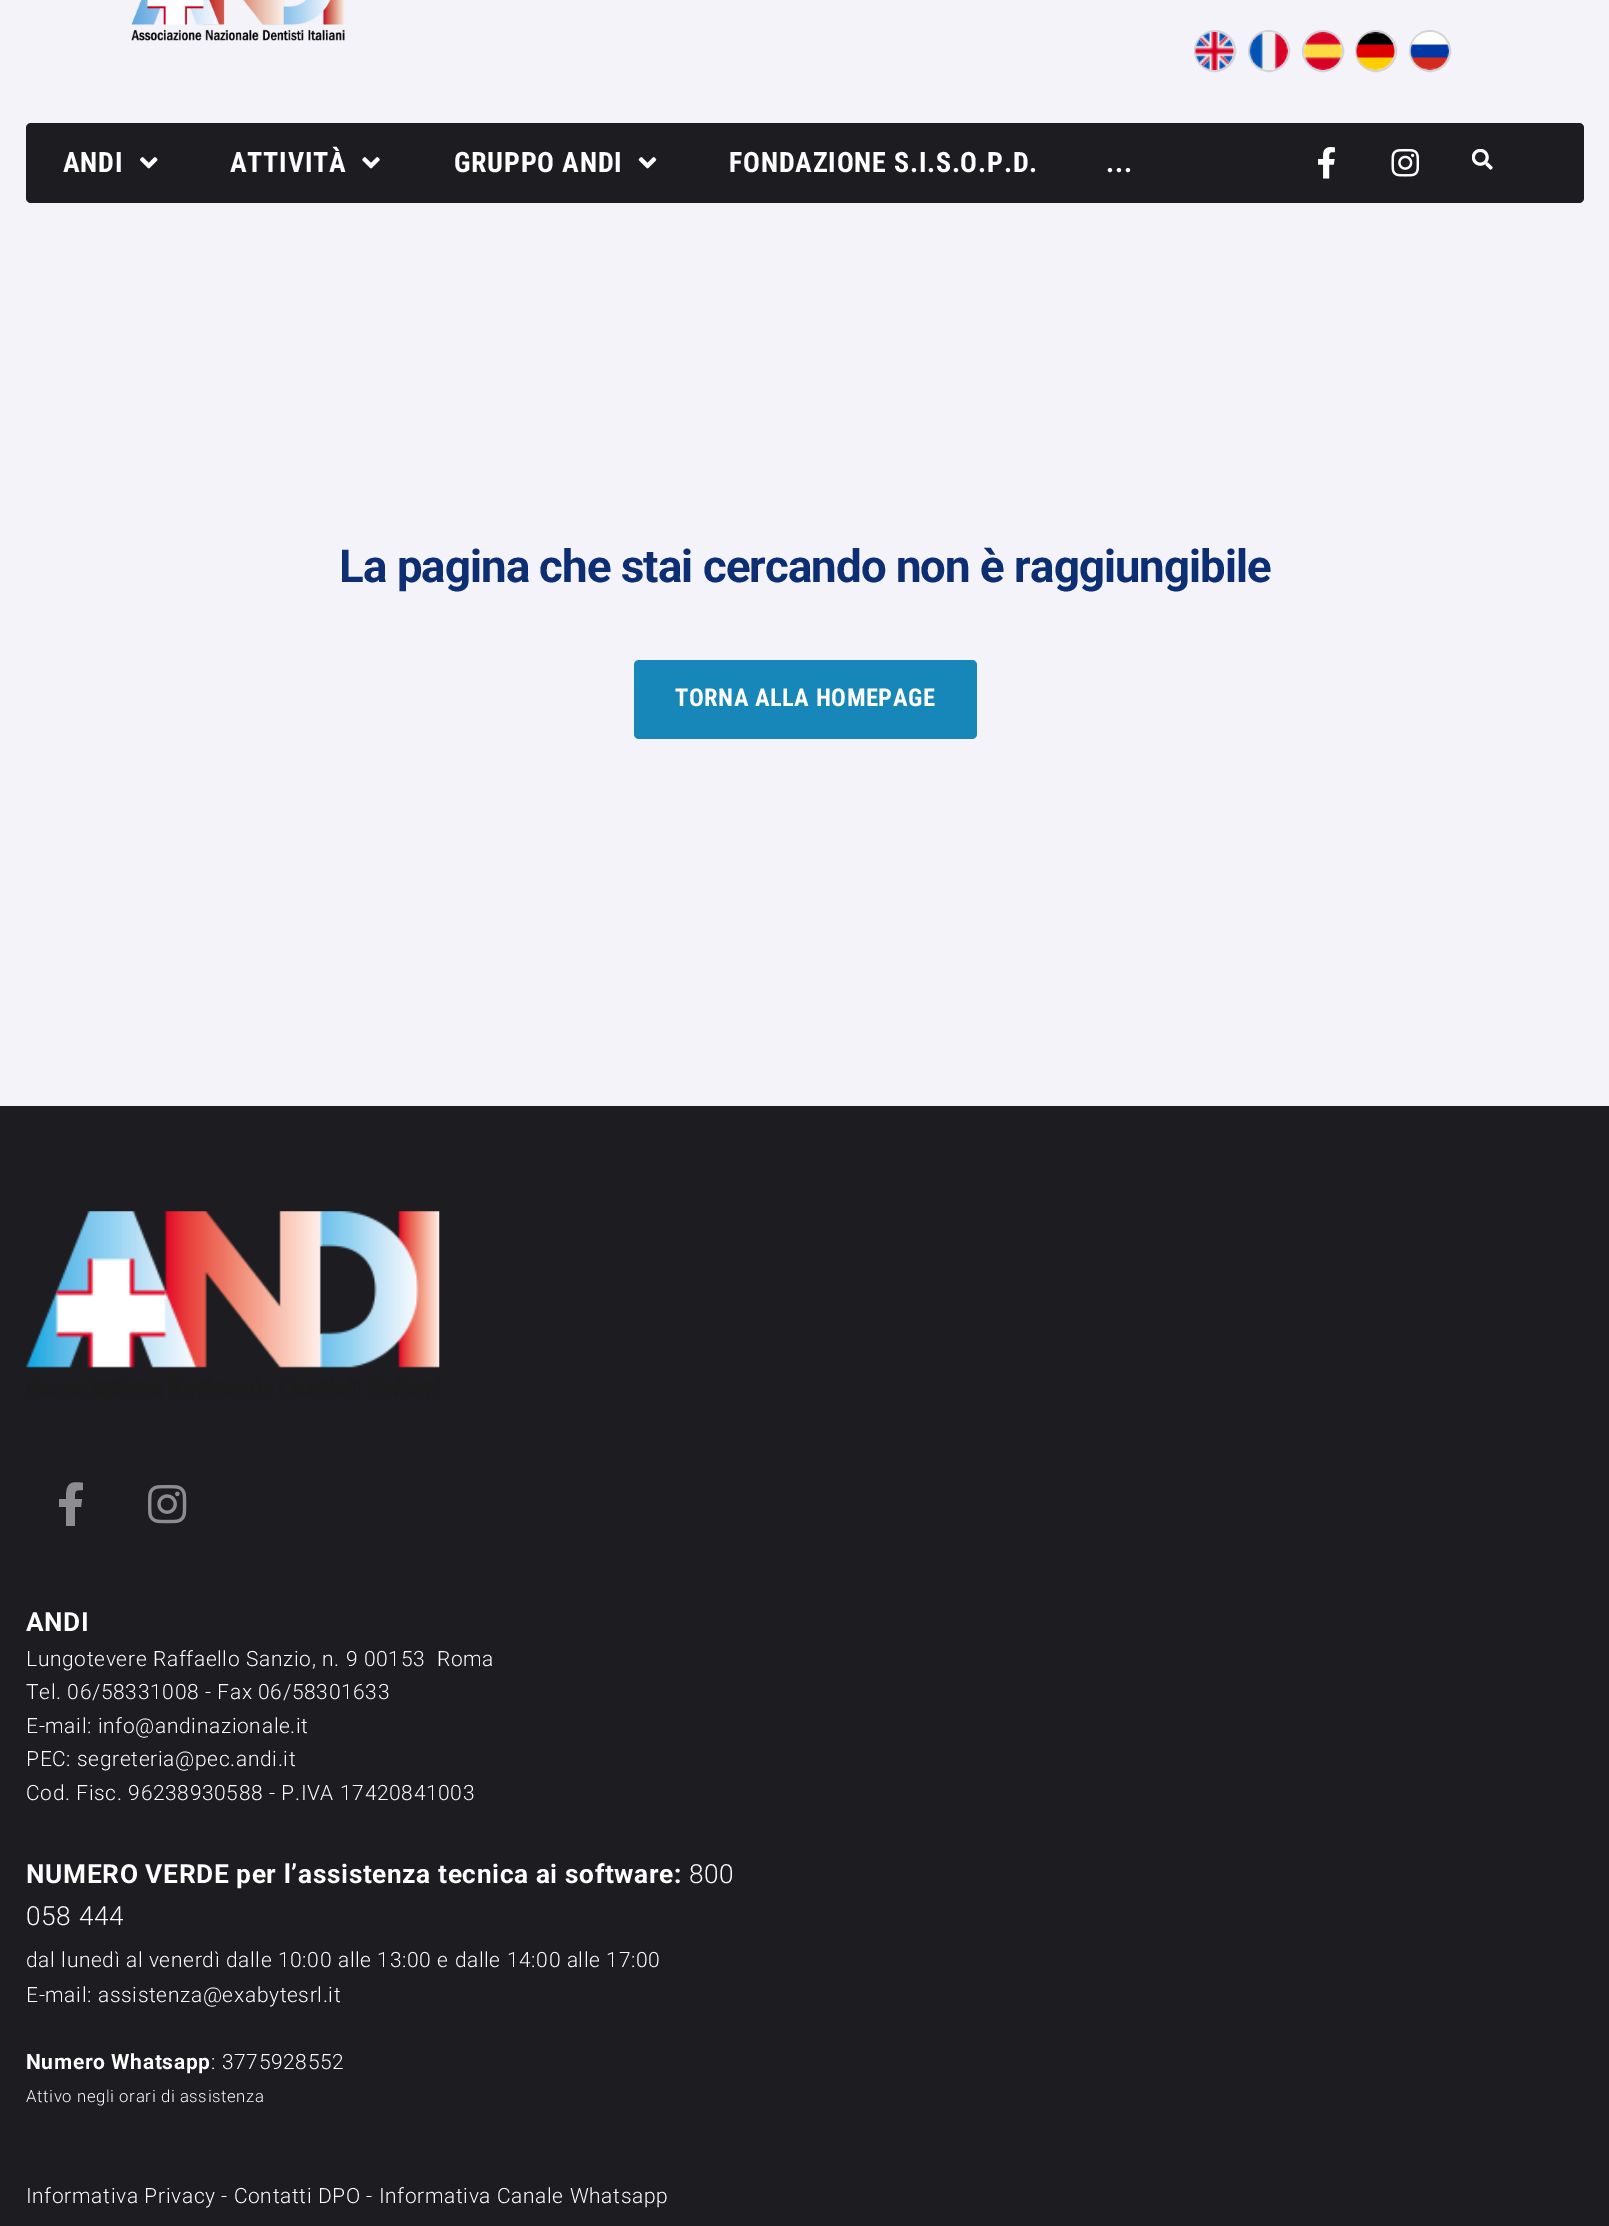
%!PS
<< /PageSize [1609 2226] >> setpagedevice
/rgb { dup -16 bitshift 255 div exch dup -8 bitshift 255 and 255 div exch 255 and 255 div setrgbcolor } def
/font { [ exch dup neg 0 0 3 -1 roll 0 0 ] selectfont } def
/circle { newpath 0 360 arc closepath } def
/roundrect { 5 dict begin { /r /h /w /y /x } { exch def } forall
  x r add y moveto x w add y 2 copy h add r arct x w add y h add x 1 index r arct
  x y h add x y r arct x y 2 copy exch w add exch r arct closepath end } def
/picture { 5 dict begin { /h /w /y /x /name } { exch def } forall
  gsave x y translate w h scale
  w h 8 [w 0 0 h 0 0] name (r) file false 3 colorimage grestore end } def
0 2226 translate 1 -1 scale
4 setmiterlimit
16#F3F3F9 rgb
0 0 1609 2226 rectfill
(pic1.raw) 131 0 214 41 picture
16#D3D3D9 rgb
2 setlinewidth
1215 51 20 circle stroke
1269 51 20 circle stroke
1323 51 20 circle stroke
1376 51 20 circle stroke
1430 51 20 circle stroke
(pic2.raw) 1195 31 39 40 picture
(pic3.raw) 1249 32 39 38 picture
(pic4.raw) 1303 31 40 40 picture
(pic5.raw) 1356 31 39 40 picture
(pic6.raw) 1410 32 39 39 picture
16#1C1C21 rgb
26 123 1558 80 5 roundrect fill
/RobotoCondensed-Bold 28 font
16#FFFFFF rgb
63 172 moveto 0.75 0 (ANDI) ashow
(pic7.raw) 140 157 18 12 picture
230 172 moveto 0.75 0 (ATTIVITÀ) ashow
(pic8.raw) 362 157 18 12 picture
454 172 moveto 0.75 0 (GRUPPO ANDI) ashow
(pic9.raw) 638 157 19 12 picture
729 172 moveto 0.75 0 (FONDAZIONE S.I.S.O.P.D.) ashow
1106 172 moveto 0.75 0 (...) ashow
(pic10.raw) 1318 147 17 32 picture
(pic11.raw) 1391 148 29 29 picture
(pic12.raw) 1472 149 21 21 picture
/Roboto-Bold 45.5 font
16#0D2E72 rgb
339 582 moveto -0.9 0 (La pagina che stai cercando non è raggiungibile) ashow
16#1687B8 rgb
634 660 343 79 5 roundrect fill
/RobotoCondensed-Bold 24.5 font
16#FFFFFF rgb
675 706 moveto 0.5 0 (TORNA ALLA HOMEPAGE) ashow
16#1C1C21 rgb
0 1106 1609 1120 rectfill
(pic13.raw) 26 1211 414 187 picture
16#8C8C91 rgb
81 1507 moveto 82 1499 lineto 75 1499 lineto 75 1491 74 1490 83 1490 curveto 83 1483 lineto 68 1480 66 1486 66 1499 curveto 59 1499 lineto 59 1507 lineto 66 1507 lineto 66 1526 lineto 75 1526 lineto 75 1507 lineto closepath fill
(pic14.raw) 148 1485 39 39 picture
/Roboto-Bold 26.25 font
16#FFFFFF rgb
26 1631 moveto 0.63 0 (ANDI) ashow
/Roboto-Light 21 font
26 1666 moveto 0.63 0 (Lungotevere Raffaello Sanzio, n. 9 00153  Roma) ashow
26 1699 moveto 0.63 0 (Tel. 06/58331008 - Fax 06/58301633) ashow
26 1733 moveto 0.63 0 (E-mail: info@andinazionale.it) ashow
26 1766 moveto 0.63 0 (PEC: segreteria@pec.andi.it) ashow
26 1800 moveto 0.63 0 (Cod. Fisc. 96238930588 - P.IVA 17420841003) ashow
/Roboto-Bold 26.25 font
26 1883 moveto 0.63 0 (NUMERO VERDE per l’assistenza tecnica ai software:) ashow
/Roboto-Light 26.25 font
689 1883 moveto 0.63 0 (800) ashow
26 1925 moveto 0.63 0 (058 444) ashow
/Roboto-Light 21 font
26 1967 moveto 0.63 0 (dal lunedì al venerdì dalle 10:00 alle 13:00 e dalle 14:00 alle 17:00) ashow
26 2002 moveto 0.63 0 (E-mail: assistenza@exabytesrl.it) ashow
/Roboto-Bold 21 font
26 2069 moveto 0.63 0 (Numero Whatsapp) ashow
/Roboto-Light 21 font
211 2069 moveto 0.63 0 (: 3775928552) ashow
/Roboto-Light 16.75 font
26 2102 moveto 0.63 0 (Attivo negli orari di assistenza) ashow
/Roboto-Light 21 font
26 2203 moveto 0.63 0 (Informativa Privacy - Contatti DPO - Informativa Canale Whatsapp) ashow
showpage
